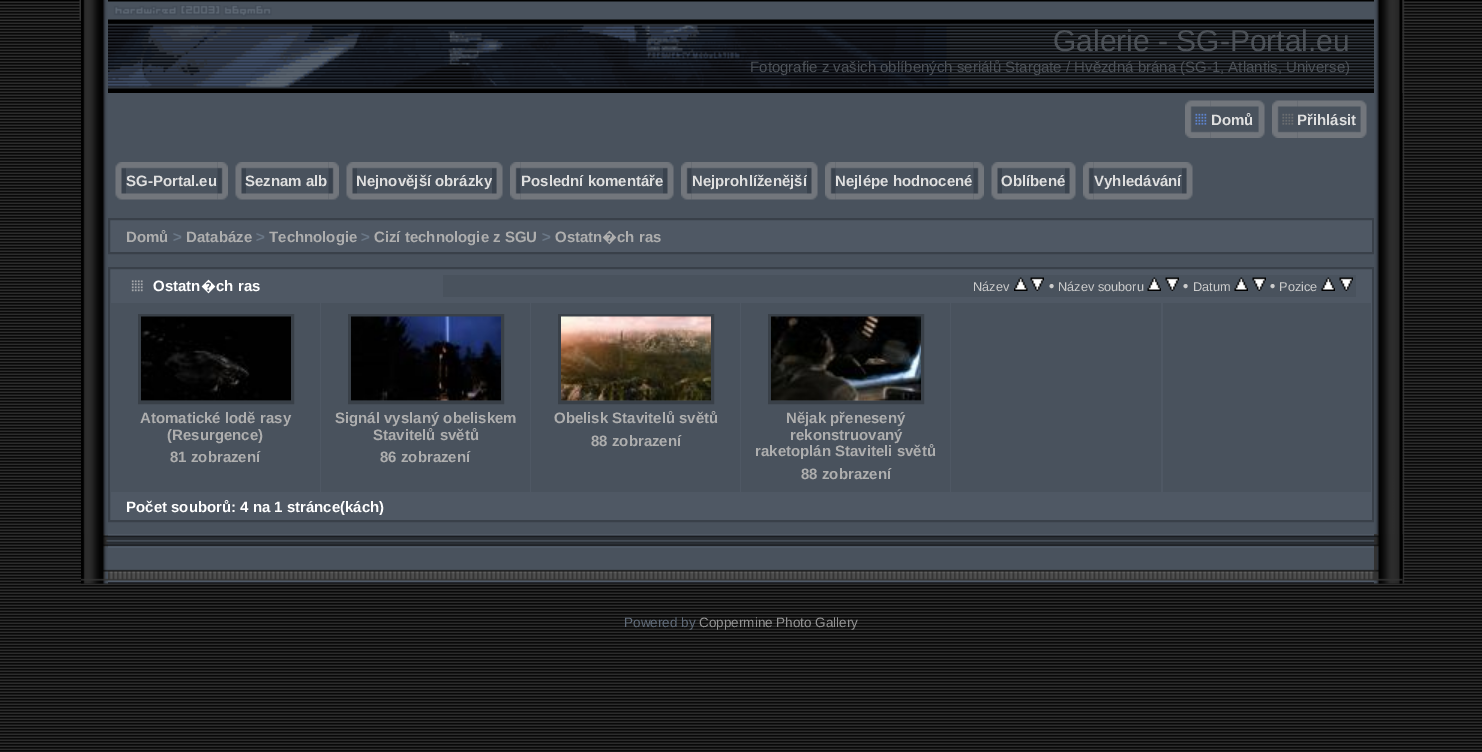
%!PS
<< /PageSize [1482 752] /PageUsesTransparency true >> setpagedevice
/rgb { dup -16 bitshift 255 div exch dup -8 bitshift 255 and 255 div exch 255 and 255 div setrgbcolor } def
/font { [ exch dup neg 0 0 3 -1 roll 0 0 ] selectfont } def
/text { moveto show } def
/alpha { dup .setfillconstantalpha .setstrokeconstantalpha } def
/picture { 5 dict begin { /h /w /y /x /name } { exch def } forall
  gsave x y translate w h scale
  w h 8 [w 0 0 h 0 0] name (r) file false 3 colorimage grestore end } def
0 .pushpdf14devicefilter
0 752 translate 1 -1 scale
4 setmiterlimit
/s1 { /LiberationSans-Regular 30 font 16#4C5157 rgb } def
/s2 { /LiberationSans-Regular 15 font 16#4C5157 rgb } def
/s3 { /LiberationSans-Bold 15 font 16#DFDFDF rgb } def
/s4 { /LiberationSans-Bold 15 font 16#AEAEAE rgb } def
/s5 { /LiberationSans-Bold 15 font 16#6A7786 rgb } def
/s6 { /NotoSans-Bold 15 font 16#AEAEAE rgb } def
/s7 { /LiberationSans-Bold 15 font 16#FFFFFF rgb } def
/s8 { /NotoSans-Bold 15 font 16#FFFFFF rgb } def
/s9 { /LiberationSans-Regular 12.75 font 16#CCCCCC rgb } def
/s10 { /LiberationSans-Bold 15 font 16#CCCCCC rgb } def
/s11 { /LiberationSans-Regular 13.5 font 16#616C7A rgb } def
/s12 { /LiberationSans-Regular 13.5 font 16#949494 rgb } def
16#FFFFFF rgb
0 0 1482 752 rectfill
(pic1.raw) 0 0 1482 752 picture
(pic2.raw) 0 0 81 21 picture
(pic3.raw) 81 0 27 93 picture
(pic4.raw) 108 0 1266 93 picture
(pic5.raw) 108 5 842 83 picture
s1
(Galerie - SG-Portal.eu) 1053 51 text
s2
(Fotografie z vašich oblíbených seriálů Stargate / Hvězdná brána \(SG-1, Atlantis, Universe\)) 750 72 text
(pic6.raw) 1374 0 29 93 picture
(pic7.raw) 1402 0 3 584 picture
0.5 alpha
16#000000 rgb
1402 0 1 21 rectfill
1 alpha
(pic8.raw) 1402 0 80 21 picture
(pic9.raw) 81 93 27 441 picture
16#49525D rgb
108 93 1266 441 rectfill
(pic11.raw) 1210 100 44 38 picture
(pic10.raw) 1185 100 26 38 picture
s3
(Domů) 1211 125 text
(pic12.raw) 1254 100 11 38 picture
(pic14.raw) 1297 100 59 38 picture
(pic13.raw) 1272 100 26 38 picture
(Přihlásit) 1297 125 text
(pic12.raw) 1356 100 11 38 picture
(pic15.raw) 115 162 11 38 picture
(pic16.raw) 126 162 92 38 picture
(SG-Portal.eu) 126 186 text
(pic17.raw) 217 162 11 38 picture
(pic15.raw) 235 162 11 38 picture
(pic18.raw) 246 162 83 38 picture
(Seznam alb) 245 186 text
(pic17.raw) 328 162 11 38 picture
(pic15.raw) 346 162 11 38 picture
(pic19.raw) 357 162 135 38 picture
(Nejnovější obrázky) 356 186 text
(pic20.raw) 492 162 11 38 picture
(pic22.raw) 520 162 143 38 picture
(pic21.raw) 510 162 11 38 picture
(Poslední komentáře) 521 186 text
(pic23.raw) 663 162 11 38 picture
(pic24.raw) 691 162 116 38 picture
(pic21.raw) 681 162 11 38 picture
(Nejprohlíženější) 692 186 text
(pic23.raw) 807 162 11 38 picture
(pic25.raw) 835 162 139 38 picture
(pic21.raw) 825 162 11 38 picture
(Nejlépe hodnocené) 835 186 text
(pic17.raw) 973 162 11 38 picture
(pic15.raw) 991 162 11 38 picture
(pic26.raw) 1002 162 63 38 picture
(Oblíbené) 1001 186 text
(pic20.raw) 1065 162 11 38 picture
(pic28.raw) 1093 162 89 38 picture
(pic27.raw) 1083 162 11 38 picture
(Vyhledávání) 1094 186 text
(pic20.raw) 1182 162 11 38 picture
16#4F5864 rgb
109 219 moveto 1373 219 lineto 1373 253 lineto 109 253 lineto closepath gsave fill grestore
16#394049 rgb
2 setlinewidth
stroke
s4
(Domů) 126 242 text
s5
(>) 173 242 text
s4
(Databáze) 186 242 text
s5
(>) 256 242 text
s4
(Technologie) 269 242 text
s5
(>) 361 242 text
s4
(Cizí technologie z SGU) 374 242 text
s5
(>) 542 242 text
s4
(Ostatn) 555 242 text
s6
(�) 602 242 text
s4
(ch ras) 617 242 text
16#4F5864 rgb
109 268 moveto 1373 268 lineto 1373 521 lineto 109 521 lineto closepath gsave fill grestore
16#394049 rgb
stroke
(pic29.raw) 131 280 12 12 picture
s7
(Ostatn) 153 291 text
s8
(�) 201 291 text
s7
(ch ras) 216 291 text
16#49525D rgb
443 275 913 22 rectfill
s9
(Název) 973 291 text
(pic30.raw) 1014 277 14 14 picture
(pic31.raw) 1030 277 14 14 picture
s10
(•) 1049 291 text
s9
(Název souboru) 1058 291 text
(pic32.raw) 1147 277 14 14 picture
(pic33.raw) 1165 277 14 14 picture
s10
(•) 1183 291 text
s9
(Datum) 1193 291 text
(pic34.raw) 1234 277 14 14 picture
(pic31.raw) 1252 277 14 14 picture
s10
(•) 1270 291 text
s9
(Pozice) 1279 291 text
(pic32.raw) 1321 277 14 14 picture
(pic33.raw) 1339 277 14 14 picture
16#49525D rgb
111 303 209 189 rectfill
16#394048 rgb
3 setlinewidth
139.5 315.5 153 87 rectstroke
(pic35.raw) 141 316 150 85 picture
s4
(Atomatické lodě rasy) 140 423 text
(\(Resurgence\)) 167 440 text
(81 zobrazení) 170 462 text
16#49525D rgb
321 303 209 189 rectfill
16#394048 rgb
349.5 315.5 153 87 rectstroke
(pic36.raw) 351 316 150 85 picture
s4
(Signál vyslaný obeliskem) 335 423 text
(Stavitelů světů) 373 440 text
(86 zobrazení) 380 462 text
16#49525D rgb
531 303 209 189 rectfill
16#394048 rgb
559.5 315.5 153 87 rectstroke
(pic37.raw) 561 316 150 85 picture
s4
(Obelisk Stavitelů světů) 554 423 text
(88 zobrazení) 591 446 text
16#49525D rgb
741 303 209 189 rectfill
16#394048 rgb
769.5 315.5 153 87 rectstroke
(pic38.raw) 771 316 150 85 picture
s4
(Nějak přenesený) 786 423 text
(rekonstruovaný) 790 440 text
(raketoplán Staviteli světů) 755 456 text
(88 zobrazení) 801 479 text
16#49525D rgb
951 303 210 189 rectfill
1163 303 208 189 rectfill
s7
(Počet souborů: 4 na 1 stránce\(kách\)) 126 512 text
(pic39.raw) 1374 93 29 441 picture
(pic40.raw) 81 580 27 4 picture
(pic41.raw) 81 534 27 47 picture
(pic42.raw) 108 534 1266 50 picture
(pic43.raw) 1374 534 29 50 picture
(pic44.raw) 1374 534 29 47 picture
s11
(Powered by) 624 627 text
s12
(Coppermine Photo Gallery) 699 627 text
.poppdf14devicefilter showpage
